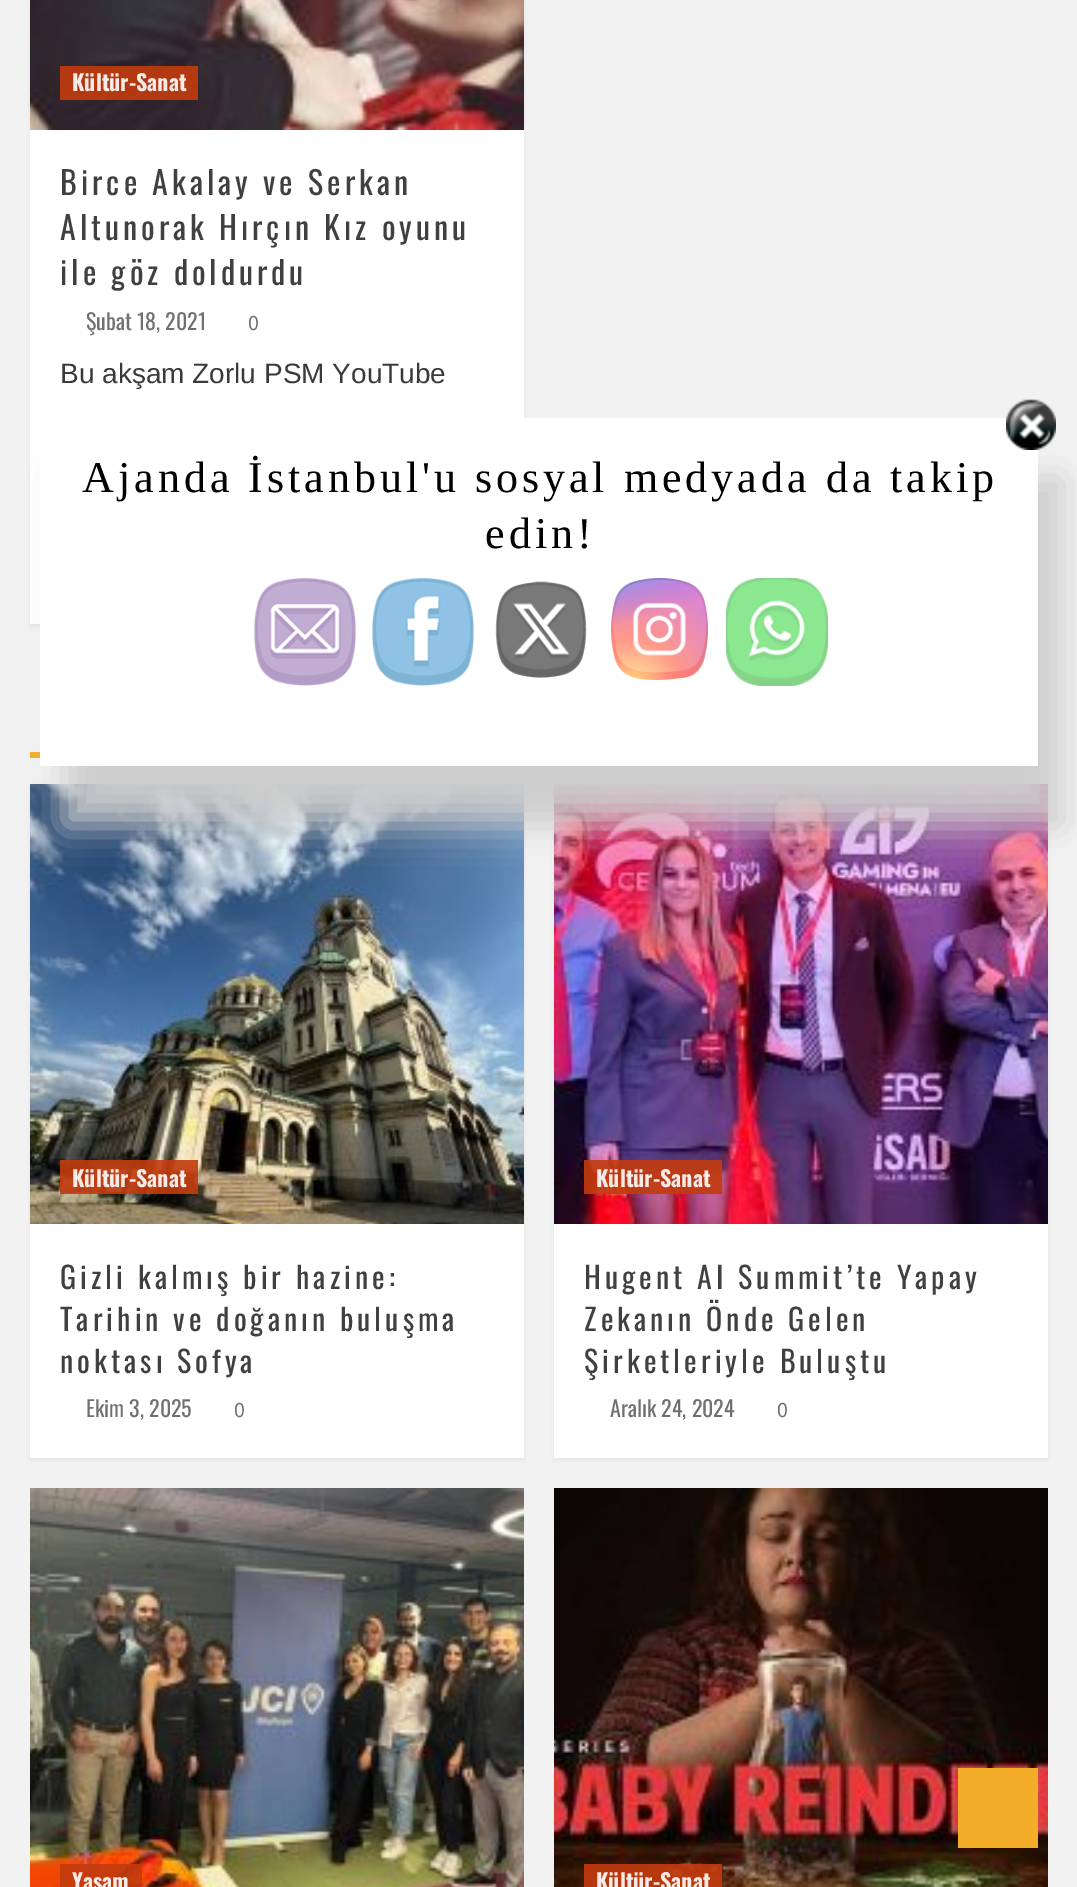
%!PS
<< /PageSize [1077 1887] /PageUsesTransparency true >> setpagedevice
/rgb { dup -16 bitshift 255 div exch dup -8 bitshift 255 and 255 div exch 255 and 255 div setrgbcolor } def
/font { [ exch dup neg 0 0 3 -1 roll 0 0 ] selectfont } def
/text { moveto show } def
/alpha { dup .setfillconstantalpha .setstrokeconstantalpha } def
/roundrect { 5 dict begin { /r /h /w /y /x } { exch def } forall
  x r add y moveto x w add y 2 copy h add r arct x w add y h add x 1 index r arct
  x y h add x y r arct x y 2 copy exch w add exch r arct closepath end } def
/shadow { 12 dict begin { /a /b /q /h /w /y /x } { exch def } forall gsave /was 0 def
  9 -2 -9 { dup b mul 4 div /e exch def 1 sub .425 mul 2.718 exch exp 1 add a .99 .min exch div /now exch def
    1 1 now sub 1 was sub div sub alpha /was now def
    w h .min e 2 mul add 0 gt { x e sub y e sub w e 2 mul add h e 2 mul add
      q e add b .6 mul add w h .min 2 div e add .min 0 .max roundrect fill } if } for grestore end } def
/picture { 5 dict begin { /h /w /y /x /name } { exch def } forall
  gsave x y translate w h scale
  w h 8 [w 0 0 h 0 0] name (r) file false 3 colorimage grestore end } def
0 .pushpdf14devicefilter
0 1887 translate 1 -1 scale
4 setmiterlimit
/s1 { /Oswald-Bold 22 font 16#F7EBE7 rgb } def
/s2 { /Oswald-Regular 22 font 16#707070 rgb } def
/s3 { /SourceSansPro-Regular 22 font 16#707070 rgb } def
/s4 { /LiberationSans-Regular 28 font 16#3A3A3A rgb } def
16#F2F2F2 rgb
0 0 1077 1887 rectfill
16#000000 rgb
30 -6 494 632 0 2 0.05 shadow
16#FFFFFF rgb
30 130 494 494 rectfill
(pic1.raw) 30 0 494 130 picture
0.9 alpha
16#C23B0E rgb
60 66 138 34 rectfill
1 alpha
s1
(Kültür-Sanat) 72 91 text
/Oswald-Regular 32 font
16#404040 rgb
60 195 moveto 4 0 (Birce Akalay ve Serkan) ashow
60 240 moveto 4 0 (Altunorak Hırçın Kız oyunu) ashow
60 285 moveto 4 0 (ile göz doldurdu) ashow
s2
(Şubat 18, 2021) 86 330 text
s3
(0) 248 330 text
s4
(Bu akşam Zorlu PSM YouTube) 60 383 text
16#F3AD29 rgb
30 752 10 6 rectfill
16#000000 rgb
30 786 494 674 0 2 0.05 shadow
16#FFFFFF rgb
30 1224 494 234 rectfill
(pic2.raw) 30 784 494 440 picture
0.9 alpha
16#C23B0E rgb
60 1160 138 34 rectfill
1 alpha
s1
(Kültür-Sanat) 72 1187 text
/Oswald-Regular 30 font
16#404040 rgb
60 1289 moveto 4 0 (Gizli kalmış bir hazine:) ashow
60 1331 moveto 4 0 (Tarihin ve doğanın buluşma) ashow
60 1373 moveto 4 0 (noktası Sofya) ashow
s2
(Ekim 3, 2025) 86 1417 text
s3
(0) 234 1417 text
16#000000 rgb
554 786 494 674 0 2 0.05 shadow
16#FFFFFF rgb
554 1224 494 234 rectfill
(pic3.raw) 554 784 494 440 picture
0.9 alpha
16#C23B0E rgb
584 1160 138 34 rectfill
1 alpha
s1
(Kültür-Sanat) 596 1187 text
/Oswald-Regular 30 font
16#404040 rgb
584 1289 moveto 4 0 (Hugent AI Summit’te Yapay) ashow
584 1331 moveto 4 0 (Zekanın Önde Gelen) ashow
584 1373 moveto 4 0 (Şirketleriyle Buluştu) ashow
s2
(Aralık 24, 2024) 610 1417 text
s3
(0) 777 1417 text
(pic4.raw) 30 1488 494 399 picture
0.9 alpha
16#C23B0E rgb
60 1864 82 23 rectfill
1 alpha
s1
(Yaşam) 72 1890 text
(pic5.raw) 554 1488 494 399 picture
0.9 alpha
16#C23B0E rgb
584 1864 138 23 rectfill
1 alpha
s1
(Kültür-Sanat) 596 1890 text
16#CCCCCC rgb
64 478 998 348 0 18 1 shadow
16#FFFFFF rgb
40 418 998 348 rectfill
(pic6.raw) 1006 399 50 51 picture
/LiberationSerif-Regular 44 font
16#000000 rgb
82 492 moveto 4 0 (Ajanda İstanbul'u sosyal medyada da takip) ashow
485 548 moveto 4 0 (edin!) ashow
(pic7.raw) 254 578 102 108 picture
(pic8.raw) 372 578 102 108 picture
(pic9.raw) 495 581 92 97 picture
(pic10.raw) 611 578 97 102 picture
(pic11.raw) 726 578 102 108 picture
16#F3AD29 rgb
958 1768 80 80 rectfill
.poppdf14devicefilter showpage
